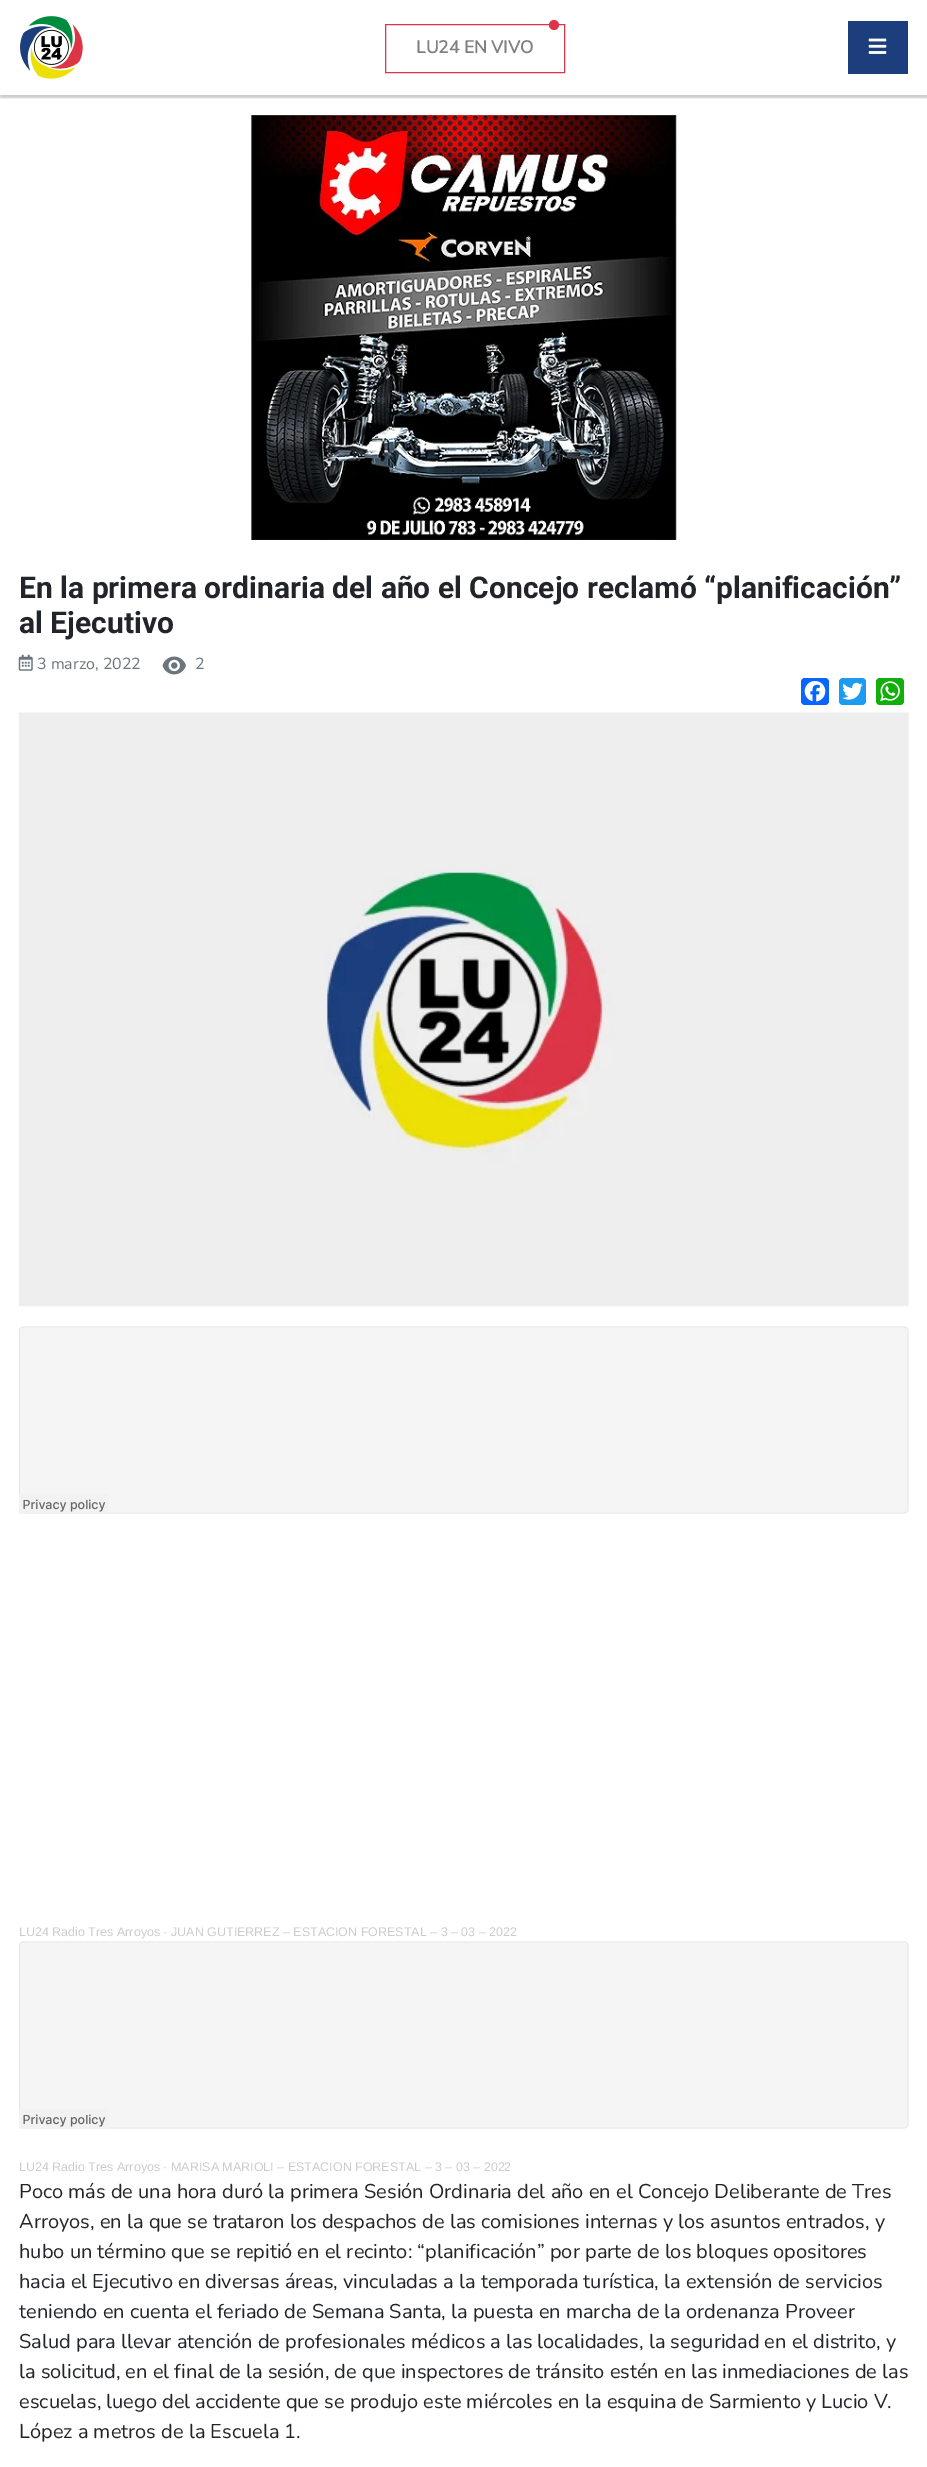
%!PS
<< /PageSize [927 2467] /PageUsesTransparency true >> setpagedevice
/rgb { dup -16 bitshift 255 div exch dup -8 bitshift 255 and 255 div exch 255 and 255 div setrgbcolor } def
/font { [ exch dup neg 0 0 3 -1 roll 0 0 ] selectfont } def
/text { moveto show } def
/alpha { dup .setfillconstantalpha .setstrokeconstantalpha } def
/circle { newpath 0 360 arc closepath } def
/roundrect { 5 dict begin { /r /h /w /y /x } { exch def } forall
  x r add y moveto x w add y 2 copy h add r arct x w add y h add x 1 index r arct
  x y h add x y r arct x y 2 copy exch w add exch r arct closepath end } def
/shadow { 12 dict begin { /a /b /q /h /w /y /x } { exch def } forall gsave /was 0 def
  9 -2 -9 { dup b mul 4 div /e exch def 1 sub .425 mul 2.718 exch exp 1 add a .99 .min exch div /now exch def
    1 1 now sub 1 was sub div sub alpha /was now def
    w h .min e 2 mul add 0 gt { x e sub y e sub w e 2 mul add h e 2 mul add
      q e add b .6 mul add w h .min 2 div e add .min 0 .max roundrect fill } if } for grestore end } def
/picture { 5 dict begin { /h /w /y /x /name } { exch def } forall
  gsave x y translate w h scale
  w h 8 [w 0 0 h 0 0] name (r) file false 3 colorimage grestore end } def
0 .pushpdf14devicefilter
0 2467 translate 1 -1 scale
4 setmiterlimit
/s1 { /Nunito-Bold 17.5 font 16#808080 rgb } def
/s2 { /Roboto-Bold 30 font 16#212529 rgb } def
/s3 { /Nunito-ExtraLight 16 font 16#6C757D rgb } def
/s4 { /LiberationSans-Regular 12.5 font 16#CCCCCC rgb } def
/s5 { /Nunito-ExtraLight 20 font 16#212529 rgb } def
16#FFFFFF rgb
0 0 927 2467 rectfill
gsave
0 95 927 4 rectclip
16#000000 rgb
0 3 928 95 0 1 0.2 shadow
grestore
(pic1.raw) 20 16 63 63 picture
16#DC3545 rgb
385.5 24.5 179 48 rectstroke
554 25 5 circle fill
s1
(LU24 EN VIVO) 416 53 text
16#1C3E7D rgb
848 21 60 53 rectfill
(pic2.raw) 868 38 19 16 picture
(pic3.raw) 251 115 426 425 picture
s2
(En la primera ordinaria del año el Concejo reclamó “planificación”) 19 598 text
(al Ejecutivo) 19 633 text
(pic4.raw) 18 654 15 17 picture
s3
(3 marzo, 2022) 37 669 text
(pic5.raw) 162 656 24 19 picture
(2) 195 669 text
16#0866FF rgb
801 678 28 27 4 roundrect fill
(pic6.raw) 804 681 22 21 picture
16#1D9BF0 rgb
839 678 27 27 4 roundrect fill
(pic7.raw) 842 682 21 18 picture
16#12AF0A rgb
876 678 28 27 4 roundrect fill
(pic8.raw) 880 681 20 21 picture
(pic9.raw) 18 712 891 595 picture
(pic10.raw) 19 1326 890 188 picture
s4
(LU24 Radio Tres Arroyos · JUAN GUTIERREZ – ESTACION FORESTAL – 3 – 03 – 2022) 19 1936 text
(pic10.raw) 19 1941 890 188 picture
(LU24 Radio Tres Arroyos · MARISA MARIOLI – ESTACION FORESTAL – 3 – 03 – 2022) 19 2171 text
s5
(Poco más de una hora duró la primera Sesión Ordinaria del año en el Concejo Deliberante de Tres) 19 2198 text
(Arroyos, en la que se trataron los despachos de las comisiones internas y los asuntos entrados, y) 19 2228 text
(hubo un término que se repitió en el recinto: “planificación” por parte de los bloques opositores) 19 2258 text
(hacia el Ejecutivo en diversas áreas, vinculadas a la temporada turística, la extensión de servicios) 19 2288 text
(teniendo en cuenta el feriado de Semana Santa, la puesta en marcha de la ordenanza Proveer) 19 2318 text
(Salud para llevar atención de profesionales médicos a las localidades, la seguridad en el distrito, y) 19 2348 text
(la solicitud, en el final de la sesión, de que inspectores de tránsito estén en las inmediaciones de las) 19 2378 text
(escuelas, luego del accidente que se produjo este miércoles en la esquina de Sarmiento y Lucio V.) 19 2408 text
(López a metros de la Escuela 1.) 19 2438 text
.poppdf14devicefilter showpage
